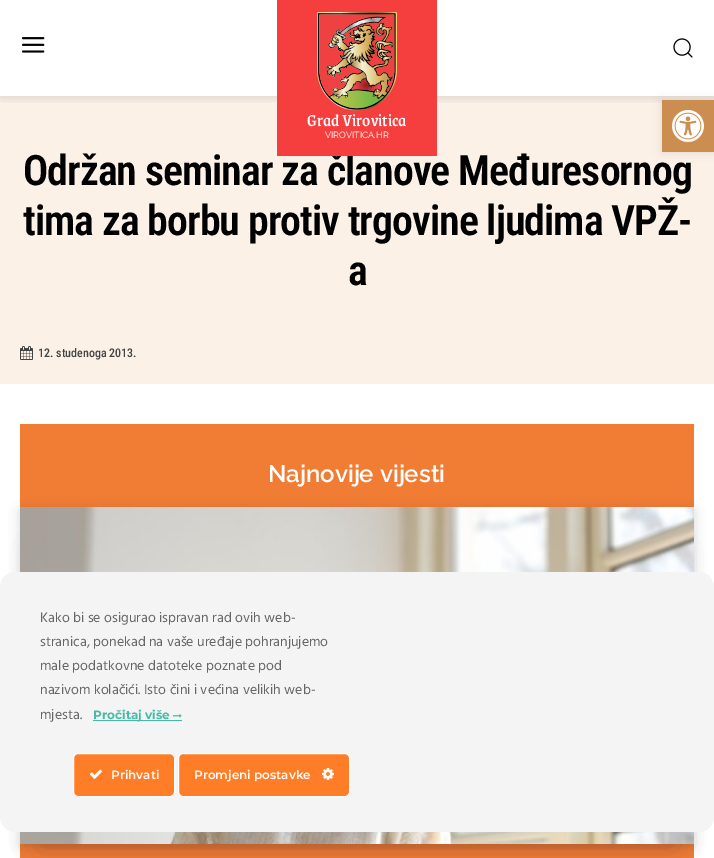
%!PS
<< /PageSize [714 858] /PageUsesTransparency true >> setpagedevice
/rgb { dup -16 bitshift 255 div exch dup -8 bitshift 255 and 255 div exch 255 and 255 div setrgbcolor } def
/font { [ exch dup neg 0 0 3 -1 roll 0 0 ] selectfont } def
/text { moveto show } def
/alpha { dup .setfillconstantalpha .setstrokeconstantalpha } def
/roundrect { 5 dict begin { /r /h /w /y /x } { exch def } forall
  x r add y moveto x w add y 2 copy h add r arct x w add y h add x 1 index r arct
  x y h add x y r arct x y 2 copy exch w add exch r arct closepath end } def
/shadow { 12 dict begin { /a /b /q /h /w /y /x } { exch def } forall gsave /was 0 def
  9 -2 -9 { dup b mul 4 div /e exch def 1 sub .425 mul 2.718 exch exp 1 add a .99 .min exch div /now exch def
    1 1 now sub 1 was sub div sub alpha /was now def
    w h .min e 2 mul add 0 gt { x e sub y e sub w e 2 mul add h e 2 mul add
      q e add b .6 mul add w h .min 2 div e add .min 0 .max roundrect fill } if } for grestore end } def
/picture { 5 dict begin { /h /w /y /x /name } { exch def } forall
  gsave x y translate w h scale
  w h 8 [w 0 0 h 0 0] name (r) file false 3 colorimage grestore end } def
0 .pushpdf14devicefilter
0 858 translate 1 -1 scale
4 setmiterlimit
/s1 { /Grenze-Medium 18 font 16#FFFFFF rgb } def
/s2 { /Raleway-Regular 9 font 16#FFFFFF rgb } def
/s3 { /RobotoCondensed-Medium 12 font 16#444444 rgb } def
/s4 { /Raleway-SemiBold 24 font 16#FFFFFF rgb } def
/s5 { /Hind-Regular 14 font 16#666666 rgb } def
/s6 { /Montserrat-Bold 12 font 16#45BBA5 rgb } def
/s7 { /Montserrat-SemiBold 12 font 16#FFFFFF rgb } def
16#FFFFFF rgb
0 0 714 858 rectfill
16#FCF1E7 rgb
0 96 714 288 rectfill
16#000000 rgb
662 100 52 52 0 5 0.1 shadow
(pic2.raw) 22 37 23 16 picture
(pic3.raw) 673 38 20 20 picture
gsave
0 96 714 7 rectclip
0 2 714 96 0 5 0.12 shadow
grestore
16#CC8D50 rgb
662 100 52 52 rectfill
(pic1.raw) 672 110 32 32 picture
/RobotoCondensed-SemiBold 42 font
16#000000 rgb
23 185 moveto -1 0 (Održan seminar za članove Međuresornog) ashow
16#F53F3F rgb
277 0 160 156 rectfill
(pic4.raw) 317 12 80 99 picture
s1
(Grad Virovitica) 307 126 text
s2
(VIROVITICA.HR) 325 138 text
/RobotoCondensed-SemiBold 42 font
16#000000 rgb
23 235 moveto -1 0 (tima za borbu protiv trgovine ljudima VPŽ-) ashow
348 285 moveto -1 0 (a) ashow
(pic5.raw) 20 346 13 14 picture
s3
(12. studenoga 2013.) 38 357 text
16#F17C34 rgb
20 424 674 434 rectfill
s4
(Najnovije vijesti) 268 482 text
16#070A19 rgb
40 549 634 297 0 13.5 0.2 shadow
21 511 672 335 0 6 0.2 shadow
(pic6.raw) 20 507 674 337 picture
16#F4F4F4 rgb
0 572 714 260 15 roundrect fill
s5
(Kako bi se osigurao ispravan rad ovih web-) 40 622 text
(stranica, ponekad na vaše uređaje pohranjujemo) 40 646 text
(male podatkovne datoteke poznate pod) 40 670 text
(nazivom kolačići. Isto čini i većina velikih web-) 40 694 text
(mjesta.) 40 719 text
16#45BBA5 rgb
93 720 89 1 rectfill
s6
(Pročitaj više) 93 719 text
(pic7.raw) 173 713 9 5 picture
16#FF7D27 rgb
73.5 753.5 101 43 4.5 roundrect gsave fill grestore
16#FFFFFF rgb
stroke
(pic8.raw) 90 769 12 10 picture
s7
(Prihvati) 111 779 text
16#FF7D27 rgb
178.5 753.5 171 43 4.5 roundrect gsave fill grestore
16#FFFFFF rgb
stroke
(Promjeni postavke) 194 779 text
(pic9.raw) 322 768 12 12 picture
.poppdf14devicefilter showpage
